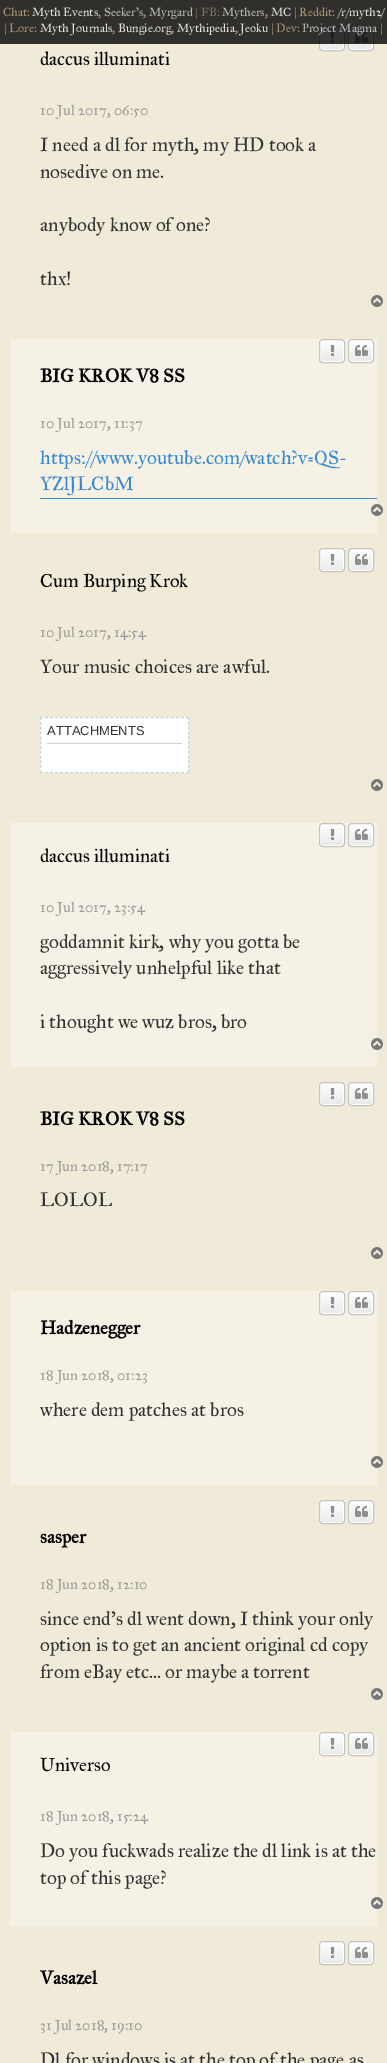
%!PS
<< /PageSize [387 2063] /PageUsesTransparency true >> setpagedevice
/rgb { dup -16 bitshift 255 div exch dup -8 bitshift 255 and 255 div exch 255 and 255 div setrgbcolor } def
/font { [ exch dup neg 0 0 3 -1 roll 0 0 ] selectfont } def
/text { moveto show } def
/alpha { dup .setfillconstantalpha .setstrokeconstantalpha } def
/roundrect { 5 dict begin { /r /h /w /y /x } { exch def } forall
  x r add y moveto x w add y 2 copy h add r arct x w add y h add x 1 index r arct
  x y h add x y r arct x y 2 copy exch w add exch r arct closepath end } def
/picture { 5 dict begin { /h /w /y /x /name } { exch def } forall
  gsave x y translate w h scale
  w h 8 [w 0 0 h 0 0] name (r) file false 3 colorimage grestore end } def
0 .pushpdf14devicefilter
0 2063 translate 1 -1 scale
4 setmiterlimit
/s1 { /IMFELLGreatPrimer-Regular 12 font 16#A79376 rgb } def
/s2 { /IMFELLGreatPrimer-Regular 12 font 16#E1E0DC rgb } def
/s3 { /IMFELLGreatPrimer-Regular 12 font 16#BABAB9 rgb } def
/s4 { /IMFELLGreatPrimer-Regular 12 font 16#816D53 rgb } def
/s5 { /IMFELLGreatPrimer-Regular 18.75 font 16#000000 rgb } def
/s6 { /IMFELLGreatPrimer-Regular 14.5 font 16#999999 rgb } def
/s7 { /IMFELLGreatPrimer-Regular 19.25 font 16#333333 rgb } def
/s8 { /IMFELLGreatPrimer-Bold 18.75 font 16#000000 rgb } def
/s9 { /IMFELLGreatPrimer-Regular 19.25 font 16#368AD2 rgb } def
/s10 { /LiberationSans-Regular 13 font 16#333333 rgb } def
16#F0EAD9 rgb
0 0 387 2063 rectfill
gsave
319 26 26 25 4 roundrect clip newpath
gsave 319 27 moveto 345 27 lineto 345 50 lineto 319 50 lineto closepath clip newpath
<< /ShadingType 2 /ColorSpace /DeviceRGB /Coords [332 27 332 50] /Extend [true true] /Function << /FunctionType 2 /Domain [0 1] /C0 [1 1 1] /C1 [0.914 0.914 0.914] /N 1 >> >> shfill grestore
grestore
16#FFFFFF rgb
320.5 27.5 23 22 2.5 roundrect stroke
16#C7C3BF rgb
319.5 26.5 25 24 3.5 roundrect stroke
(pic1.raw) 330 32 5 11 picture
gsave
348 26 26 25 4 roundrect clip newpath
gsave 348 27 moveto 374 27 lineto 374 50 lineto 348 50 lineto closepath clip newpath
<< /ShadingType 2 /ColorSpace /DeviceRGB /Coords [361 27 361 50] /Extend [true true] /Function << /FunctionType 2 /Domain [0 1] /C0 [1 1 1] /C1 [0.914 0.914 0.914] /N 1 >> >> shfill grestore
grestore
16#FFFFFF rgb
349.5 27.5 23 22 2.5 roundrect stroke
16#C7C3BF rgb
348.5 26.5 25 24 3.5 roundrect stroke
(pic2.raw) 355 32 13 11 picture
0.8 alpha
16#000000 rgb
0 0 387 44 rectfill
1 alpha
s1
(Chat:) 3 16 text
s2
(Myth Events) 32 16 text
s1
(,) 98 16 text
s3
(Seeker's) 104 16 text
s1
(,) 143 16 text
s3
(Myrgard) 149 16 text
s4
(|) 195 16 text
(FB:) 201 16 text
s3
(Mythers) 222 16 text
s1
(,) 265 16 text
s2
(MC) 271 16 text
s1
(| Reddit:) 294 16 text
s2
(/r/myth2/) 338 16 text
s1
(| Lore:) 4 32 text
s2
(Myth Journals) 40 32 text
s1
(,) 112 32 text
s2
(Bungie.org) 118 32 text
(Mythipedia) 177 32 text
(Jeoku) 240 32 text
s1
(| Dev:) 271 32 text
s3
(Project Magma) 302 32 text
s1
(|) 380 32 text
(,) 171 32 text
(,) 235 32 text
s5
(daccus illuminati) 40 65 text
s6
(10 Jul 2017, 06:50) 40 115 text
s7
(I need a dl for myth, my HD took a) 40 151 text
(nosedive on me.) 40 178 text
(anybody know of one?) 40 231 text
(thx!) 40 285 text
(pic3.raw) 371 295 12 12 picture
16#F5F1E4 rgb
10 339 367 194 rectfill
s8
(BIG KROK V8 SS) 40 382 text
gsave
319 339 26 24 4 roundrect clip newpath
gsave 319 340 moveto 345 340 lineto 345 362 lineto 319 362 lineto closepath clip newpath
<< /ShadingType 2 /ColorSpace /DeviceRGB /Coords [332 340 332 362] /Extend [true true] /Function << /FunctionType 2 /Domain [0 1] /C0 [1 1 1] /C1 [0.914 0.914 0.914] /N 1 >> >> shfill grestore
grestore
16#FFFFFF rgb
320.5 340.5 23 21 2.5 roundrect stroke
16#C7C3BF rgb
319.5 339.5 25 23 3.5 roundrect stroke
(pic1.raw) 330 345 5 11 picture
gsave
348 339 26 24 4 roundrect clip newpath
gsave 348 340 moveto 374 340 lineto 374 362 lineto 348 362 lineto closepath clip newpath
<< /ShadingType 2 /ColorSpace /DeviceRGB /Coords [361 340 361 362] /Extend [true true] /Function << /FunctionType 2 /Domain [0 1] /C0 [1 1 1] /C1 [0.914 0.914 0.914] /N 1 >> >> shfill grestore
grestore
16#FFFFFF rgb
349.5 340.5 23 21 2.5 roundrect stroke
16#C7C3BF rgb
348.5 339.5 25 23 3.5 roundrect stroke
(pic2.raw) 355 345 13 11 picture
s6
(10 Jul 2017, 11:37) 40 428 text
16#368AD2 rgb
40 498 337 1 rectfill
s9
(https://www.youtube.com/watch?v=QS-) 40 464 text
(YZlJLCbM) 40 490 text
(pic4.raw) 371 504 12 12 picture
s5
(Cum Burping Krok) 40 587 text
gsave
319 548 26 24 4 roundrect clip newpath
gsave 319 549 moveto 345 549 lineto 345 571 lineto 319 571 lineto closepath clip newpath
<< /ShadingType 2 /ColorSpace /DeviceRGB /Coords [332 549 332 571] /Extend [true true] /Function << /FunctionType 2 /Domain [0 1] /C0 [1 1 1] /C1 [0.914 0.914 0.914] /N 1 >> >> shfill grestore
grestore
16#FFFFFF rgb
320.5 549.5 23 21 2.5 roundrect stroke
16#C7C3BF rgb
319.5 548.5 25 23 3.5 roundrect stroke
(pic1.raw) 330 554 5 11 picture
gsave
348 548 26 24 4 roundrect clip newpath
gsave 348 549 moveto 374 549 lineto 374 571 lineto 348 571 lineto closepath clip newpath
<< /ShadingType 2 /ColorSpace /DeviceRGB /Coords [361 549 361 571] /Extend [true true] /Function << /FunctionType 2 /Domain [0 1] /C0 [1 1 1] /C1 [0.914 0.914 0.914] /N 1 >> >> shfill grestore
grestore
16#FFFFFF rgb
349.5 549.5 23 21 2.5 roundrect stroke
16#C7C3BF rgb
348.5 548.5 25 23 3.5 roundrect stroke
(pic2.raw) 355 554 13 11 picture
s6
(10 Jul 2017, 14:54) 40 637 text
s7
(Your music choices are awful.) 40 673 text
16#FFFFFF rgb
40 717 149 56 rectfill
16#C9D2D8 rgb
[3 2.03] 0 setdash
40 717.5 moveto 189 717.5 lineto stroke
[3 1.82] 0 setdash
188.5 717 moveto 188.5 773 lineto stroke
[3 2.03] 0 setdash
40 772.5 moveto 189 772.5 lineto stroke
[3 1.82] 0 setdash
40.5 717 moveto 40.5 773 lineto stroke
s10
(ATTACHMENTS) 47 735 text
16#C9D2D8 rgb
47 743 135 1 rectfill
(pic3.raw) 371 779 12 12 picture
16#F5F1E4 rgb
10 823 367 244 rectfill
s5
(daccus illuminati) 40 862 text
gsave
319 823 26 24 4 roundrect clip newpath
gsave 319 824 moveto 345 824 lineto 345 846 lineto 319 846 lineto closepath clip newpath
<< /ShadingType 2 /ColorSpace /DeviceRGB /Coords [332 824 332 846] /Extend [true true] /Function << /FunctionType 2 /Domain [0 1] /C0 [1 1 1] /C1 [0.914 0.914 0.914] /N 1 >> >> shfill grestore
grestore
16#FFFFFF rgb
[] 0 setdash
320.5 824.5 23 21 2.5 roundrect stroke
16#C7C3BF rgb
319.5 823.5 25 23 3.5 roundrect stroke
(pic1.raw) 330 829 5 11 picture
gsave
348 823 26 24 4 roundrect clip newpath
gsave 348 824 moveto 374 824 lineto 374 846 lineto 348 846 lineto closepath clip newpath
<< /ShadingType 2 /ColorSpace /DeviceRGB /Coords [361 824 361 846] /Extend [true true] /Function << /FunctionType 2 /Domain [0 1] /C0 [1 1 1] /C1 [0.914 0.914 0.914] /N 1 >> >> shfill grestore
grestore
16#FFFFFF rgb
349.5 824.5 23 21 2.5 roundrect stroke
16#C7C3BF rgb
348.5 823.5 25 23 3.5 roundrect stroke
(pic2.raw) 355 829 13 11 picture
s6
(10 Jul 2017, 23:54) 40 912 text
s7
(goddamnit kirk, why you gotta be) 40 948 text
(aggressively unhelpful like that) 40 974 text
(i thought we wuz bros, bro) 40 1028 text
(pic4.raw) 371 1038 12 12 picture
s8
(BIG KROK V8 SS) 40 1125 text
gsave
319 1082 26 24 4 roundrect clip newpath
gsave 319 1083 moveto 345 1083 lineto 345 1105 lineto 319 1105 lineto closepath clip newpath
<< /ShadingType 2 /ColorSpace /DeviceRGB /Coords [332 1083 332 1105] /Extend [true true] /Function << /FunctionType 2 /Domain [0 1] /C0 [1 1 1] /C1 [0.914 0.914 0.914] /N 1 >> >> shfill grestore
grestore
16#FFFFFF rgb
320.5 1083.5 23 21 2.5 roundrect stroke
16#C7C3BF rgb
319.5 1082.5 25 23 3.5 roundrect stroke
(pic1.raw) 330 1088 5 11 picture
gsave
348 1082 26 24 4 roundrect clip newpath
gsave 348 1083 moveto 374 1083 lineto 374 1105 lineto 348 1105 lineto closepath clip newpath
<< /ShadingType 2 /ColorSpace /DeviceRGB /Coords [361 1083 361 1105] /Extend [true true] /Function << /FunctionType 2 /Domain [0 1] /C0 [1 1 1] /C1 [0.914 0.914 0.914] /N 1 >> >> shfill grestore
grestore
16#FFFFFF rgb
349.5 1083.5 23 21 2.5 roundrect stroke
16#C7C3BF rgb
348.5 1082.5 25 23 3.5 roundrect stroke
(pic2.raw) 355 1088 13 11 picture
s6
(17 Jun 2018, 17:17) 40 1171 text
s7
(LOLOL) 40 1206 text
(pic3.raw) 371 1247 12 12 picture
16#F5F1E4 rgb
10 1291 367 194 rectfill
s8
(Hadzenegger) 40 1334 text
gsave
319 1291 26 24 4 roundrect clip newpath
gsave 319 1292 moveto 345 1292 lineto 345 1314 lineto 319 1314 lineto closepath clip newpath
<< /ShadingType 2 /ColorSpace /DeviceRGB /Coords [332 1292 332 1314] /Extend [true true] /Function << /FunctionType 2 /Domain [0 1] /C0 [1 1 1] /C1 [0.914 0.914 0.914] /N 1 >> >> shfill grestore
grestore
16#FFFFFF rgb
320.5 1292.5 23 21 2.5 roundrect stroke
16#C7C3BF rgb
319.5 1291.5 25 23 3.5 roundrect stroke
(pic1.raw) 330 1297 5 11 picture
gsave
348 1291 26 24 4 roundrect clip newpath
gsave 348 1292 moveto 374 1292 lineto 374 1314 lineto 348 1314 lineto closepath clip newpath
<< /ShadingType 2 /ColorSpace /DeviceRGB /Coords [361 1292 361 1314] /Extend [true true] /Function << /FunctionType 2 /Domain [0 1] /C0 [1 1 1] /C1 [0.914 0.914 0.914] /N 1 >> >> shfill grestore
grestore
16#FFFFFF rgb
349.5 1292.5 23 21 2.5 roundrect stroke
16#C7C3BF rgb
348.5 1291.5 25 23 3.5 roundrect stroke
(pic2.raw) 355 1297 13 11 picture
s6
(18 Jun 2018, 01:23) 40 1380 text
s7
(where dem patches at bros) 40 1416 text
(pic4.raw) 371 1456 12 12 picture
s8
(sasper) 40 1543 text
gsave
319 1500 26 24 4 roundrect clip newpath
gsave 319 1501 moveto 345 1501 lineto 345 1523 lineto 319 1523 lineto closepath clip newpath
<< /ShadingType 2 /ColorSpace /DeviceRGB /Coords [332 1501 332 1523] /Extend [true true] /Function << /FunctionType 2 /Domain [0 1] /C0 [1 1 1] /C1 [0.914 0.914 0.914] /N 1 >> >> shfill grestore
grestore
16#FFFFFF rgb
320.5 1501.5 23 21 2.5 roundrect stroke
16#C7C3BF rgb
319.5 1500.5 25 23 3.5 roundrect stroke
(pic1.raw) 330 1506 5 11 picture
gsave
348 1500 26 24 4 roundrect clip newpath
gsave 348 1501 moveto 374 1501 lineto 374 1523 lineto 348 1523 lineto closepath clip newpath
<< /ShadingType 2 /ColorSpace /DeviceRGB /Coords [361 1501 361 1523] /Extend [true true] /Function << /FunctionType 2 /Domain [0 1] /C0 [1 1 1] /C1 [0.914 0.914 0.914] /N 1 >> >> shfill grestore
grestore
16#FFFFFF rgb
349.5 1501.5 23 21 2.5 roundrect stroke
16#C7C3BF rgb
348.5 1500.5 25 23 3.5 roundrect stroke
(pic2.raw) 355 1506 13 11 picture
s6
(18 Jun 2018, 12:10) 40 1589 text
s7
(since end's dl went down, I think your only) 40 1625 text
(option is to get an ancient original cd copy) 40 1651 text
(from eBay etc... or maybe a torrent) 40 1678 text
(pic3.raw) 371 1688 12 12 picture
16#F5F1E4 rgb
10 1732 367 194 rectfill
s5
(Universo) 40 1771 text
gsave
319 1732 26 24 4 roundrect clip newpath
gsave 319 1733 moveto 345 1733 lineto 345 1755 lineto 319 1755 lineto closepath clip newpath
<< /ShadingType 2 /ColorSpace /DeviceRGB /Coords [332 1733 332 1755] /Extend [true true] /Function << /FunctionType 2 /Domain [0 1] /C0 [1 1 1] /C1 [0.914 0.914 0.914] /N 1 >> >> shfill grestore
grestore
16#FFFFFF rgb
320.5 1733.5 23 21 2.5 roundrect stroke
16#C7C3BF rgb
319.5 1732.5 25 23 3.5 roundrect stroke
(pic1.raw) 330 1738 5 11 picture
gsave
348 1732 26 24 4 roundrect clip newpath
gsave 348 1733 moveto 374 1733 lineto 374 1755 lineto 348 1755 lineto closepath clip newpath
<< /ShadingType 2 /ColorSpace /DeviceRGB /Coords [361 1733 361 1755] /Extend [true true] /Function << /FunctionType 2 /Domain [0 1] /C0 [1 1 1] /C1 [0.914 0.914 0.914] /N 1 >> >> shfill grestore
grestore
16#FFFFFF rgb
349.5 1733.5 23 21 2.5 roundrect stroke
16#C7C3BF rgb
348.5 1732.5 25 23 3.5 roundrect stroke
(pic2.raw) 355 1738 13 11 picture
s6
(18 Jun 2018, 15:24) 40 1821 text
s7
(Do you fuckwads realize the dl link is at the) 40 1857 text
(top of this page?) 40 1884 text
(pic4.raw) 371 1897 12 12 picture
s8
(Vasazel) 40 1984 text
gsave
319 1941 26 24 4 roundrect clip newpath
gsave 319 1942 moveto 345 1942 lineto 345 1964 lineto 319 1964 lineto closepath clip newpath
<< /ShadingType 2 /ColorSpace /DeviceRGB /Coords [332 1942 332 1964] /Extend [true true] /Function << /FunctionType 2 /Domain [0 1] /C0 [1 1 1] /C1 [0.914 0.914 0.914] /N 1 >> >> shfill grestore
grestore
16#FFFFFF rgb
320.5 1942.5 23 21 2.5 roundrect stroke
16#C7C3BF rgb
319.5 1941.5 25 23 3.5 roundrect stroke
(pic1.raw) 330 1947 5 11 picture
gsave
348 1941 26 24 4 roundrect clip newpath
gsave 348 1942 moveto 374 1942 lineto 374 1964 lineto 348 1964 lineto closepath clip newpath
<< /ShadingType 2 /ColorSpace /DeviceRGB /Coords [361 1942 361 1964] /Extend [true true] /Function << /FunctionType 2 /Domain [0 1] /C0 [1 1 1] /C1 [0.914 0.914 0.914] /N 1 >> >> shfill grestore
grestore
16#FFFFFF rgb
349.5 1942.5 23 21 2.5 roundrect stroke
16#C7C3BF rgb
348.5 1941.5 25 23 3.5 roundrect stroke
(pic2.raw) 355 1947 13 11 picture
s6
(31 Jul 2018, 19:10) 40 2030 text
s7
(Dl for windows is at the top of the page as) 40 2066 text
.poppdf14devicefilter showpage
